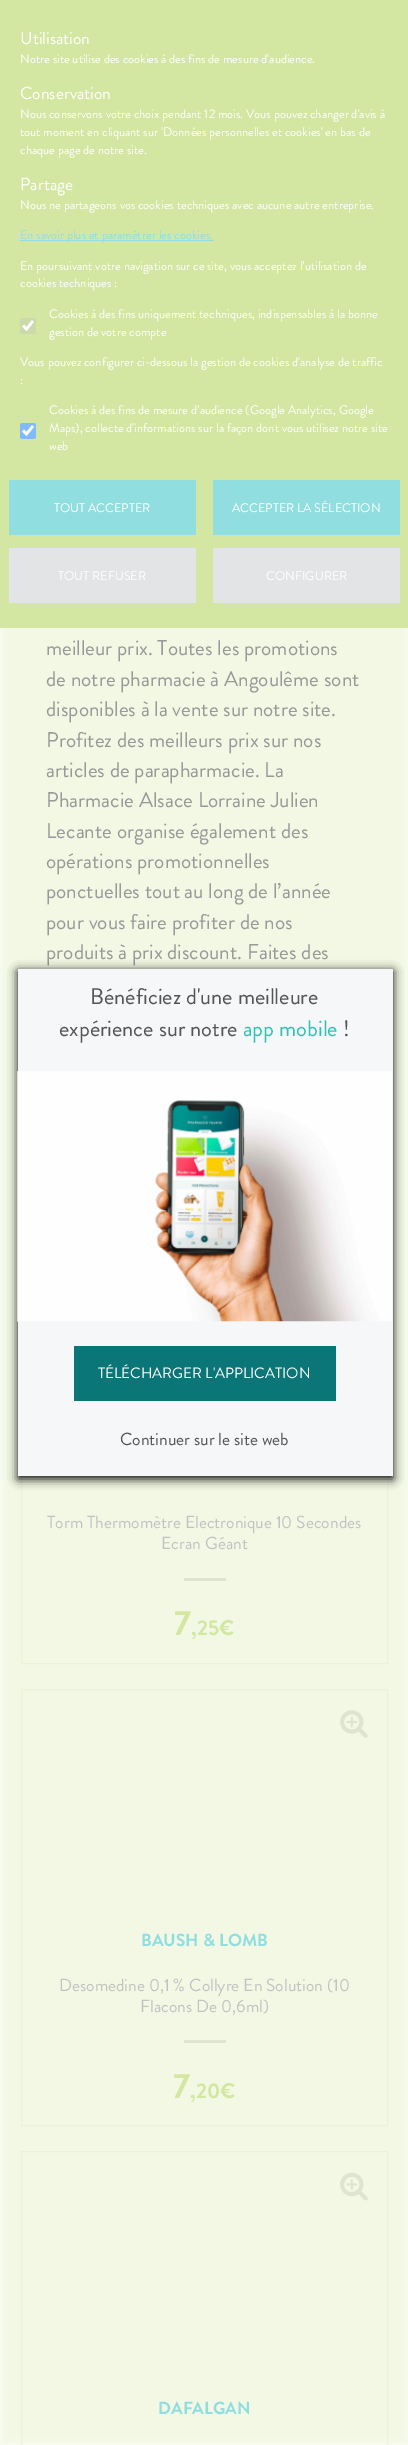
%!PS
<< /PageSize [408 2445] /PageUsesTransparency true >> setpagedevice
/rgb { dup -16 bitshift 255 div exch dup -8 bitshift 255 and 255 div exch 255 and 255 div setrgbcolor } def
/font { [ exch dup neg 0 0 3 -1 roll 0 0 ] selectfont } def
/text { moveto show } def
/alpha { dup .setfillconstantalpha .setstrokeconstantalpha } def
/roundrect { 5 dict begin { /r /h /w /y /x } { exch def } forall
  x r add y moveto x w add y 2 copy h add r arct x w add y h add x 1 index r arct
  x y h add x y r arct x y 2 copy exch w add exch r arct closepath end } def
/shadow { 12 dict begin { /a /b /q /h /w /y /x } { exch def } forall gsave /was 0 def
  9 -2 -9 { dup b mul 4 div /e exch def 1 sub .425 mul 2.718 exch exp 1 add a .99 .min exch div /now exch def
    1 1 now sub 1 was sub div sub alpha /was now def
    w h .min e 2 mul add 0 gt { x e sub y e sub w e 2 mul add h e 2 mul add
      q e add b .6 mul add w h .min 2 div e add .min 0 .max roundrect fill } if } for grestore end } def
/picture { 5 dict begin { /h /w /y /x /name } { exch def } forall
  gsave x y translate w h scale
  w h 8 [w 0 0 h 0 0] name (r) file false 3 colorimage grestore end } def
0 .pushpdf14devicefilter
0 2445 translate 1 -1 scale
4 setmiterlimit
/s1 { /BrandonGrotesque-Regular 17.5 font 16#FFFFFF rgb } def
/s2 { /BrandonGrotesque-Regular 12.5 font 16#FFFFFF rgb } def
/s3 { /BrandonGrotesque-Regular 12.5 font 16#90DEE0 rgb } def
/s4 { /BrandonGrotesque-Regular 21.25 font 16#999999 rgb } def
/s5 { /BrandonGrotesque-Regular 17.5 font 16#C1C3C3 rgb } def
/s6 { /BrandonGrotesque-Bold 35 font 16#D3E6A2 rgb } def
/s7 { /BrandonGrotesque-Bold 21.25 font 16#D3E6A2 rgb } def
/s8 { /BrandonGrotesque-Bold 17.5 font 16#90DEE0 rgb } def
/s9 { /BrandonGrotesque-Regular 22.5 font 16#555555 rgb } def
/s10 { /BrandonGrotesque-Regular 22.5 font 16#30C1B5 rgb } def
/s11 { /BrandonGrotesque-Regular 15 font 16#FFFFFF rgb } def
/s12 { /BrandonGrotesque-Regular 17.5 font 16#555555 rgb } def
16#FFFFFF rgb
0 0 408 2445 rectfill
16#F5F5F5 rgb
21.5 1226.5 366 437 rectstroke
16#E2E4E5 rgb
184 1578 42 3 rectfill
16#F5F5F5 rgb
21.5 1689.5 366 436 rectstroke
(pic1.raw) 340 1710 28 28 picture
16#E2E4E5 rgb
184 2040 42 3 rectfill
16#F5F5F5 rgb
21.5 2151.5 366 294 rectstroke
(pic2.raw) 340 2172 28 29 picture
16#D3E6A2 rgb
0 0 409 2445 0 5 0.3 shadow
0 0 408 628 rectfill
s1
(Utilisation) 20 44 text
s2
(Notre site utilise des cookies à des fins de mesure d'audience.) 20 63 text
s1
(Conservation) 20 99 text
s2
(Nous conservons votre choix pendant 12 mois. Vous pouvez changer d'avis à) 20 118 text
(tout moment en cliquant sur 'Données personnelles et cookies' en bas de) 20 136 text
(chaque page de notre site.) 20 154 text
s1
(Partage) 20 190 text
s2
(Nous ne partageons vos cookies techniques avec aucune autre entreprise.) 20 209 text
16#90DEE0 rgb
20 240 194 1 rectfill
(En savoir plus et paramétrer les cookies.) 20 239 text
s2
(En poursuivant votre navigation sur ce site, vous acceptez l’utilisation de) 20 270 text
(cookies techniques :) 20 287 text
16#CCD9AA rgb
20 318 16 16 2.5 roundrect fill
16#FFFFFF rgb
2.6 setlinewidth
23 325.5 moveto 26.5 329 lineto 33 321 lineto stroke
(Cookies à des fins uniquement techniques, indispensables à la bonne) 49 318 text
(gestion de votre compte) 49 336 text
(Vous pouvez configurer ci-dessous la gestion de cookies d'analyse de traffic) 20 366 text
(:) 20 384 text
16#80BAFF rgb
20 423 16 16 2.5 roundrect fill
16#FFFFFF rgb
23 430.5 moveto 26.5 434 lineto 33 426 lineto stroke
(Cookies à des fins de mesure d’audience \(Google Analytics, Google) 49 414 text
(Maps\), collecte d'informations sur la façon dont vous utilisez notre site) 49 432 text
(web) 49 450 text
16#90DEE0 rgb
9 480 187 55 rectfill
s2
(TOUT ACCEPTER) 54 512 text
16#90DEE0 rgb
213 480 187 55 rectfill
s2
(ACCEPTER LA SÉLECTION) 232 512 text
16#E2E4E5 rgb
9 548 187 55 rectfill
s2
(TOUT REFUSER) 58 580 text
16#E2E4E5 rgb
213 548 187 55 rectfill
s2
(CONFIGURER) 266 580 text
s4
(meilleur prix. Toutes les promotions) 46 655 text
(de notre pharmacie à Angoulême sont) 46 686 text
(disponibles à la vente sur notre site.) 46 716 text
(Profitez des meilleurs prix sur nos) 46 747 text
(articles de parapharmacie. La) 46 777 text
(Pharmacie Alsace Lorraine Julien) 46 807 text
(Lecante organise également des) 46 838 text
(opérations promotionnelles) 46 868 text
(ponctuelles tout au long de l’année) 46 898 text
(pour vous faire profiter de nos) 46 929 text
(produits à prix discount. Faites des) 46 959 text
s5
(Torm Thermomètre Electronique 10 Secondes) 47 1528 text
(Ecran Géant) 161 1549 text
s6
(7) 174 1635 text
s7
(,25€) 191 1635 text
s8
(BAUSH & LOMB) 141 1946 text
s5
(Desomedine 0,1 % Collyre En Solution \(10) 59 1991 text
(Flacons De 0,6ml\)) 140 2012 text
s6
(7) 173 2098 text
s7
(,20€) 190 2098 text
s8
(DAFALGAN) 158 2414 text
16#000000 rgb
18 971 375 508 0 5 1 shadow
16#F6F7F9 rgb
18 969 375 507 rectfill
s9
(Bénéficiez d'une meilleure) 90 1004 text
(expérience sur notre) 59 1036 text
s10
(app mobile) 243 1036 text
s9
(!) 343 1036 text
(pic3.raw) 17 1071 375 251 picture
16#0B7678 rgb
74 1346 262 55 rectfill
s11
(TÉLÉCHARGER L'APPLICATION) 98 1378 text
s12
(Continuer sur le site web) 120 1445 text
.poppdf14devicefilter showpage
